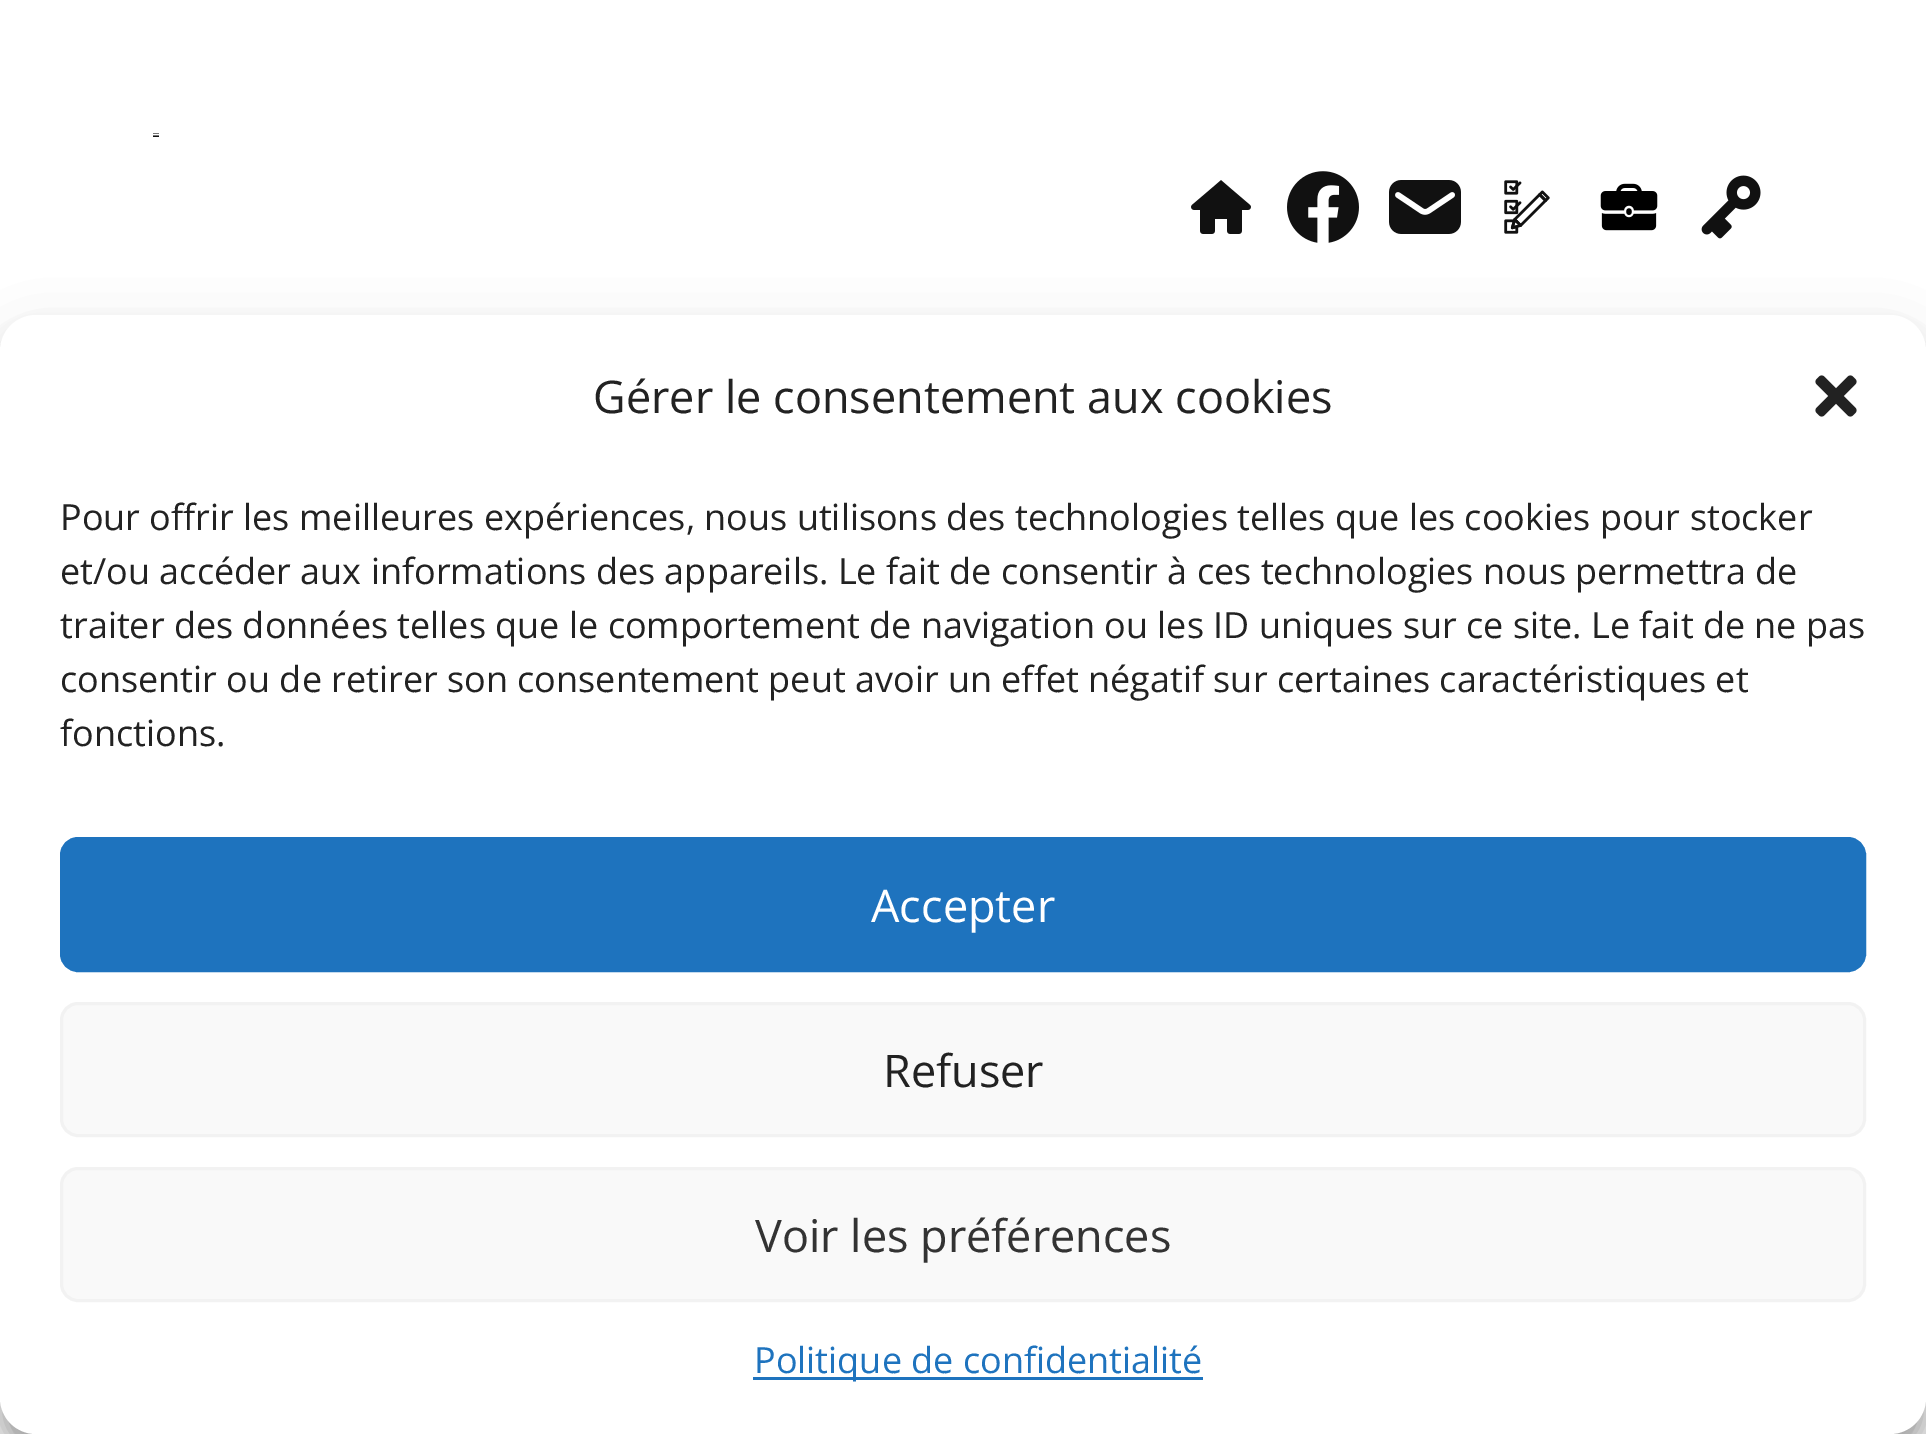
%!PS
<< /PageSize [1926 1434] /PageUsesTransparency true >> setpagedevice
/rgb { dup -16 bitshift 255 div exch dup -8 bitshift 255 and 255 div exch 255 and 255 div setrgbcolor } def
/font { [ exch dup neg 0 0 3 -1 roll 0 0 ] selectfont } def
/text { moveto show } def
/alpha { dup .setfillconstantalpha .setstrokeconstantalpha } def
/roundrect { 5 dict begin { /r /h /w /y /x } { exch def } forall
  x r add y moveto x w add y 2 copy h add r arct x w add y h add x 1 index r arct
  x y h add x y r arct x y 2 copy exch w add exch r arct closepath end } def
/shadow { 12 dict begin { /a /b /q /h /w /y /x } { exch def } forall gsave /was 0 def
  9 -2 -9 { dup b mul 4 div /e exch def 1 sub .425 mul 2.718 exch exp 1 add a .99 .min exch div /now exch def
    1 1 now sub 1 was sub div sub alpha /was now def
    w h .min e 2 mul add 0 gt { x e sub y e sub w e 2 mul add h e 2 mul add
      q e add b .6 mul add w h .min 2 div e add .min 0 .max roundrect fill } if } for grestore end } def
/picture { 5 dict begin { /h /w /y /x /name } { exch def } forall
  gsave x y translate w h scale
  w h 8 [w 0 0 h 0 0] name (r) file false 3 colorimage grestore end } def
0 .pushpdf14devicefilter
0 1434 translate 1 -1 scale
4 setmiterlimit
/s1 { /OpenSans-Regular 45 font 16#222222 rgb } def
/s2 { /OpenSans-Regular 36 font 16#222222 rgb } def
/s3 { /OpenSans-Regular 45 font 16#FFFFFF rgb } def
/s4 { /OpenSans-Regular 45 font 16#333333 rgb } def
/s5 { /OpenSans-Regular 36 font 16#1E73BE rgb } def
16#FFFFFF rgb
0 0 1926 1434 rectfill
16#787878 rgb
153 133 6 1 rectfill
153 135 6 1 rectfill
16#111111 rgb
153 136 6 1 0.5 roundrect fill
(pic1.raw) 1191 180 60 54 picture
(pic2.raw) 1287 171 72 72 picture
(pic3.raw) 1389 180 72 54 picture
(pic4.raw) 1504 180 46 54 picture
(pic5.raw) 1600 183 58 48 picture
(pic6.raw) 1701 175 60 64 picture
16#000000 rgb
0 333 1926 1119 36 9 0.23 shadow
0 345 1926 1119 36 30 0.19 shadow
16#FFFFFF rgb
0 315 1926 1119 36 roundrect fill
s1
(Gérer le consentement aux cookies) 593 413 text
(pic7.raw) 1815 375 42 42 picture
s2
(Pour offrir les meilleures expériences, nous utilisons des technologies telles que les cookies pour stocker) 60 530 text
(et/ou accéder aux informations des appareils. Le fait de consentir à ces technologies nous permettra de) 60 584 text
(traiter des données telles que le comportement de navigation ou les ID uniques sur ce site. Le fait de ne pas) 60 638 text
(consentir ou de retirer son consentement peut avoir un effet négatif sur certaines caractéristiques et) 60 692 text
(fonctions.) 60 746 text
16#1E73BE rgb
61.5 838.5 1803 132 16.5 roundrect gsave fill grestore
3 setlinewidth
stroke
s3
(Accepter) 871 922 text
16#F9F9F9 rgb
61.5 1003.5 1803 132 16.5 roundrect gsave fill grestore
16#F2F2F2 rgb
stroke
s1
(Refuser) 883 1087 text
16#F9F9F9 rgb
61.5 1168.5 1803 132 16.5 roundrect gsave fill grestore
16#F2F2F2 rgb
stroke
s4
(Voir les préférences) 755 1252 text
16#1E73BE rgb
753 1377 450 3 rectfill
s5
(Politique de confidentialité) 754 1373 text
.poppdf14devicefilter showpage
